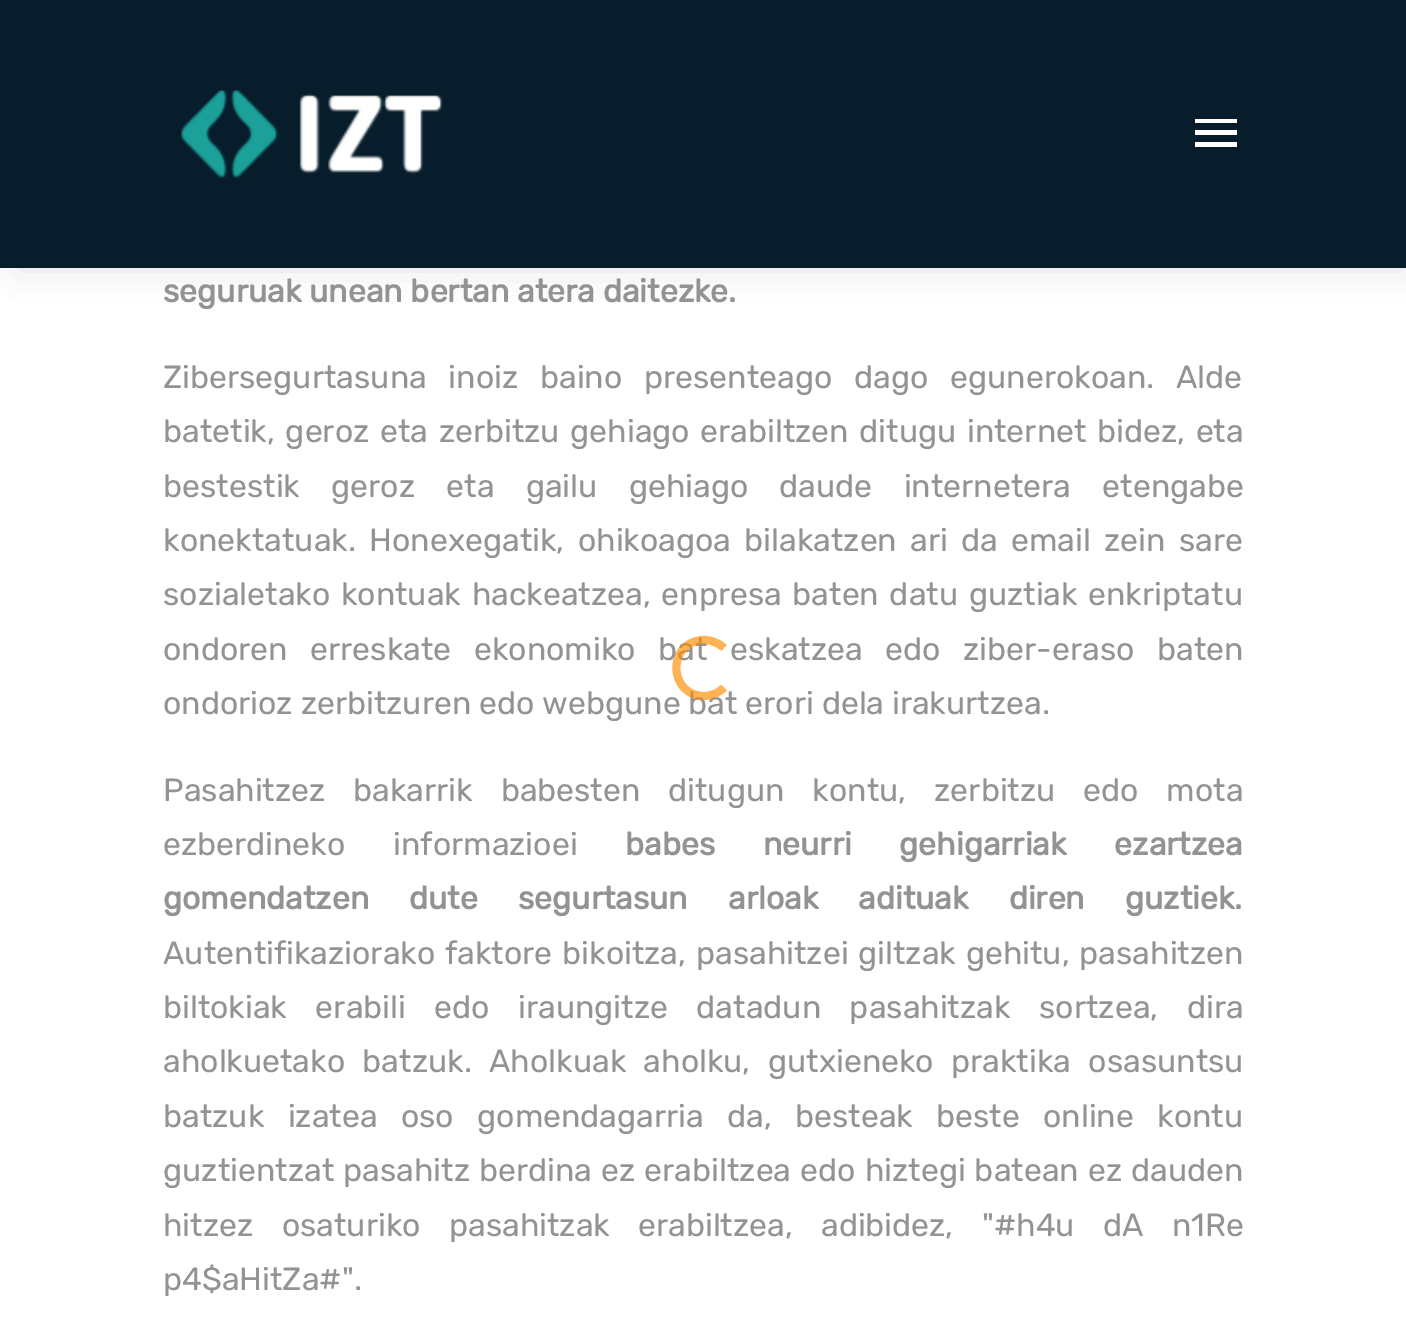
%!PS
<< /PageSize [1406 1342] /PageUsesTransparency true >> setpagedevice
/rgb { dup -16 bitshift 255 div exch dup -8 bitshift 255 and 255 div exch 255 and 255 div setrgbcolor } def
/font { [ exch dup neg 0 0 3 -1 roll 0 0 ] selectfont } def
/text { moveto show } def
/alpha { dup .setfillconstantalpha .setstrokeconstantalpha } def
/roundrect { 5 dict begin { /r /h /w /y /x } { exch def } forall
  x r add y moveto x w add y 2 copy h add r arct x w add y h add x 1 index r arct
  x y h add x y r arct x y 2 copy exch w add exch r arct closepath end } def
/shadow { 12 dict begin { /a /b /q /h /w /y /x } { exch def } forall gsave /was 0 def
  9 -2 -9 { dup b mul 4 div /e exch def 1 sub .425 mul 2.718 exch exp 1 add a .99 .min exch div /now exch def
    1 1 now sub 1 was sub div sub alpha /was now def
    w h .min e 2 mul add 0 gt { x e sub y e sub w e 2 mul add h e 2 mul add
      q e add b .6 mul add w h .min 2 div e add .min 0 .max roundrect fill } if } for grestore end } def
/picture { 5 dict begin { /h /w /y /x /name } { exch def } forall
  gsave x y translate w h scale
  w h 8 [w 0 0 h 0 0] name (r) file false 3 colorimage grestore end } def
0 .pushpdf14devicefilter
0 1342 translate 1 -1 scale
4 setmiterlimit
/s1 { /Rubik-Light 32 font 16#939393 rgb } def
/s2 { /Rubik-Bold 32 font 16#939393 rgb } def
16#FFFFFF rgb
0 0 1406 1342 rectfill
16#000000 rgb
18 10 1386 248 0 20 0.2 shadow
16#081D2B rgb
0 0 1406 268 rectfill
(pic1.raw) 181 90 262 88 picture
16#FFFFFF rgb
1195 119 moveto 1237 119 lineto 1237 123 lineto 1195 123 lineto closepath 1195 135 moveto 1195 130 lineto 1237 130 lineto 1237 135 lineto closepath 1195 147 moveto 1195 142 lineto 1237 142 lineto 1237 147 lineto closepath fill
/Rubik-Light 32 font
16#939393 rgb
163 660 moveto 14.75 0 32 (ondoren erreskate ekonomiko bat eskatzea edo ziber-eraso baten) widthshow
(ondorioz zerbitzuren edo webgune bat erori dela irakurtzea.) 163 714 text
0.66 alpha
16#FF8B00 rgb
8 setlinewidth
724 687.5 moveto 718.5 693 711.5 696 704 696 curveto 670.5 696 666 647 698.5 640.5 curveto 707.5 638.5 717 641.5 724 648 curveto stroke
1 alpha
s2
(seguruak unean bertan atera daitezke.) 163 302 text
/Rubik-Light 32 font
163 388 moveto 14 0 32 (Zibersegurtasuna inoiz baino presenteago dago egunerokoan. Alde) widthshow
163 442 moveto 2.75 0 32 (batetik, geroz eta zerbitzu gehiago erabiltzen ditugu internet bidez, eta) widthshow
163 497 moveto 23.5 0 32 (bestestik geroz eta gailu gehiago daude internetera etengabe) widthshow
163 551 moveto 5.5 0 32 (konektatuak. Honexegatik, ohikoagoa bilakatzen ari da email zein sare) widthshow
163 605 moveto 2.75 0 32 (sozialetako kontuak hackeatzea, enpresa baten datu guztiak enkriptatu) widthshow
163 801 moveto 20 0 32 (Pasahitzez bakarrik babesten ditugun kontu, zerbitzu edo mota) widthshow
163 855 moveto 40 0 32 (ezberdineko informazioei) widthshow
/Rubik-Bold 32 font
625 855 moveto 40 0 32 (babes neurri gehigarriak ezartzea) widthshow
163 909 moveto 32.25 0 32 (gomendatzen dute segurtasun arloak adituak diren guztiek.) widthshow
/Rubik-Light 32 font
163 964 moveto 2 0 32 (Autentifikaziorako faktore bikoitza, pasahitzei giltzak gehitu, pasahitzen) widthshow
163 1018 moveto 20.75 0 32 (biltokiak erabili edo iraungitze datadun pasahitzak sortzea, dira) widthshow
163 1072 moveto 9.5 0 32 (aholkuetako batzuk. Aholkuak aholku, gutxieneko praktika osasuntsu) widthshow
163 1127 moveto 15.5 0 32 (batzuk izatea oso gomendagarria da, besteak beste online kontu) widthshow
163 1181 moveto 1.25 0 32 (guztientzat pasahitz berdina ez erabiltzea edo hiztegi batean ez dauden) widthshow
163 1236 moveto 20.5 0 32 (hitzez osaturiko pasahitzak erabiltzea, adibidez, "#h4u dA n1Re) widthshow
(p4$aHitZa#".) 163 1290 text
.poppdf14devicefilter showpage
